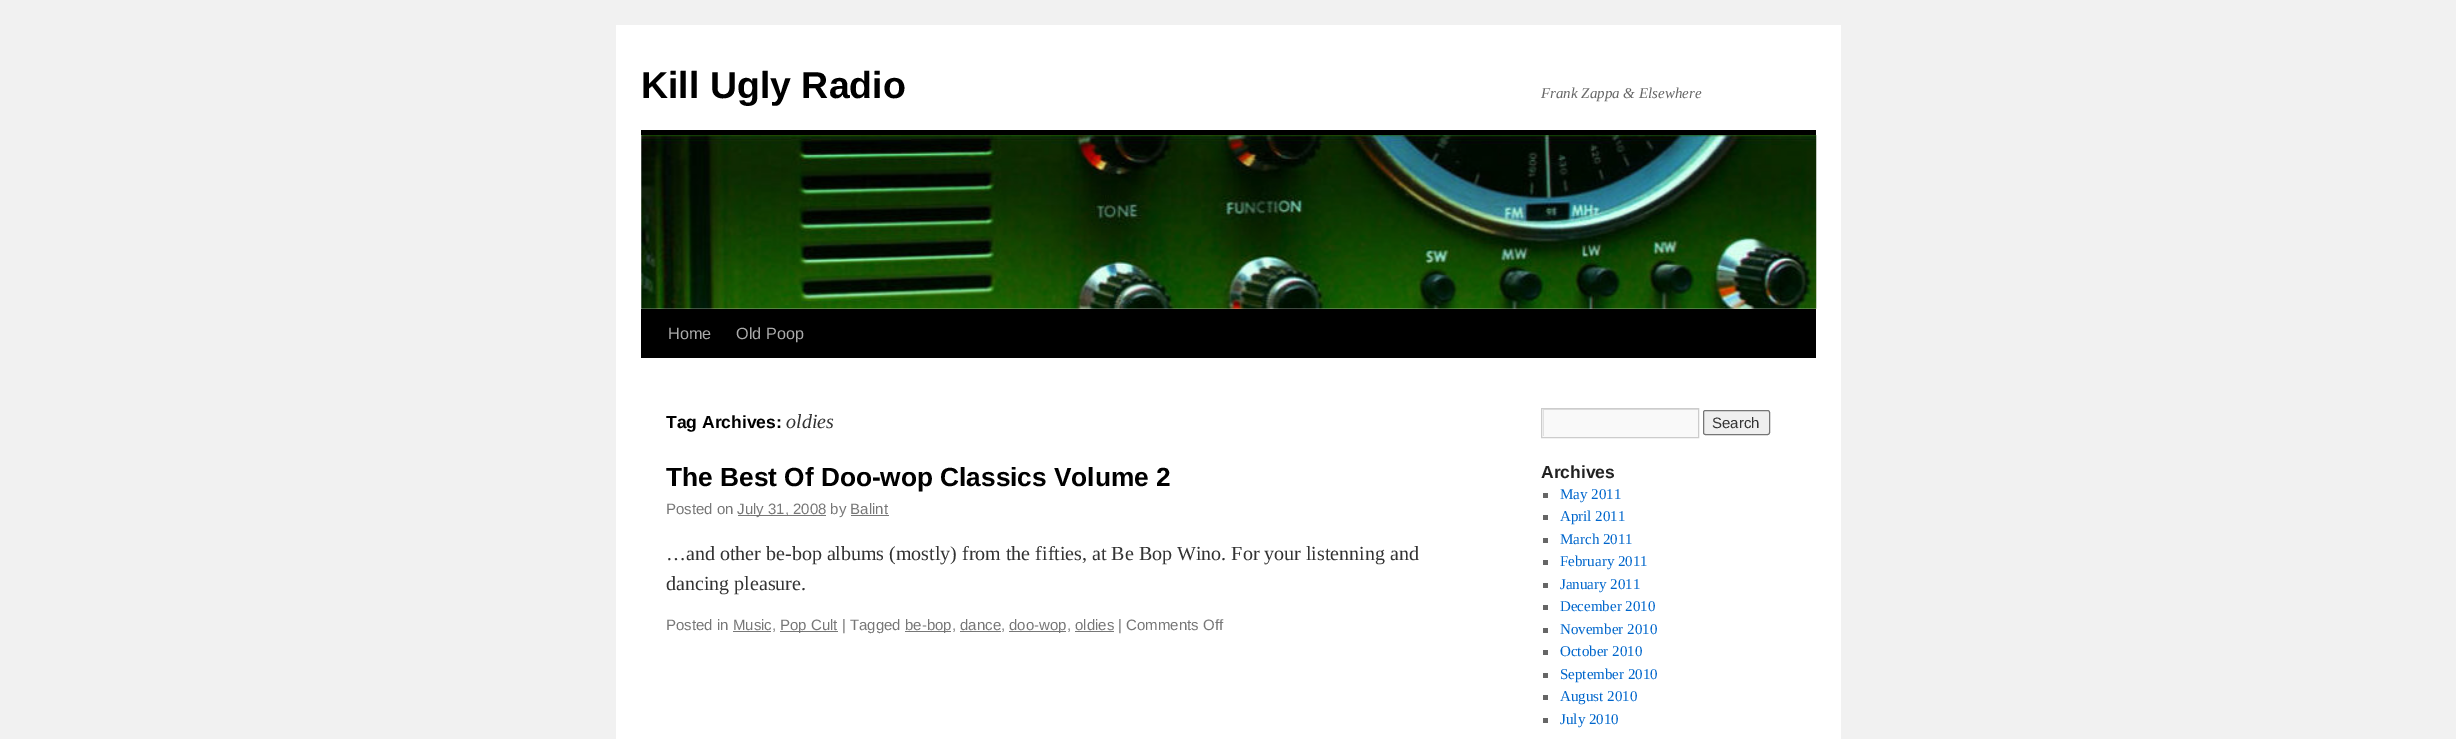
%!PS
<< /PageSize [2456 739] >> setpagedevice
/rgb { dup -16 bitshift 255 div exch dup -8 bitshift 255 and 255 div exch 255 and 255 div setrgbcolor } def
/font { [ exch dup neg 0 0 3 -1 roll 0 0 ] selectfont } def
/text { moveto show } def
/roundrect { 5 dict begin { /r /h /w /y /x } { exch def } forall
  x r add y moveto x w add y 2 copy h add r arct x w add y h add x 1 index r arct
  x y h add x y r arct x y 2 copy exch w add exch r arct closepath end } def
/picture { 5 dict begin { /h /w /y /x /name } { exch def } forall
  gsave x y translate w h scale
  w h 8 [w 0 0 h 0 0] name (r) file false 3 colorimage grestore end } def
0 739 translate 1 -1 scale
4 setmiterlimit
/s1 { /LiberationSans-Bold 37.5 font 16#000000 rgb } def
/s2 { /LiberationSerif-Italic 15 font 16#666666 rgb } def
/s3 { /LiberationSans-Regular 16.25 font 16#AAAAAA rgb } def
/s4 { /LiberationSans-Bold 17.5 font 16#000000 rgb } def
/s5 { /LiberationSerif-Italic 20 font 16#333333 rgb } def
/s6 { /LiberationSans-Bold 26.25 font 16#000000 rgb } def
/s7 { /LiberationSans-Regular 15 font 16#777777 rgb } def
/s8 { /LiberationSerif-Regular 20 font 16#333333 rgb } def
/s9 { /LiberationSans-Regular 15 font 16#333333 rgb } def
/s10 { /LiberationSans-Bold 17.5 font 16#222222 rgb } def
/s11 { /LiberationSerif-Regular 15 font 16#0066CC rgb } def
16#F1F1F1 rgb
0 0 2456 739 rectfill
16#FFFFFF rgb
616 25 1225 714 rectfill
s1
(Kill Ugly Radio) 641 98 text
s2
(Frank Zappa & Elsewhere) 1541 98 text
16#000000 rgb
641 130 1175 5 rectfill
641 309 1175 49 rectfill
(pic1.raw) 641 135 1176 174 picture
s3
(Home) 668 339 text
(Old Poop) 736 339 text
s4
(Tag Archives:) 666 428 text
s5
(oldies) 786 428 text
s6
(The Best Of Doo-wop Classics Volume 2) 666 486 text
s7
(Posted on) 666 514 text
738 515 88 1 rectfill
(July 31, 2008 by Balint) 737 514 text
851 515 38 1 rectfill
s8
(…and other be-bop albums \(mostly\) from the fifties, at Be Bop Wino. For your listenning and) 666 560 text
(dancing pleasure.) 666 590 text
s7
(Posted in Music,) 666 630 text
733 631 38 1 rectfill
780 631 58 1 rectfill
(Pop Cult | Tagged) 780 630 text
905 631 46 1 rectfill
(be-bop, dance,) 905 630 text
960 631 41 1 rectfill
1009 631 57 1 rectfill
(doo-wop, oldies | Comments Off) 1009 630 text
1075 631 39 1 rectfill
16#F9F9F9 rgb
1542 409 156 28 rectfill
gsave
1543 409 155 27 rectclip
16#E0E0E0 rgb
1419 285 moveto 1821 285 lineto 1821 560 lineto 1419 560 lineto closepath 1544 410 moveto 1699 410 lineto 1699 438 lineto 1544 438 lineto closepath eofill
grestore
16#CCCCCC rgb
1541.5 408.5 157 29 rectstroke
16#EFEFEF rgb
1703.5 410.5 66 24 2 roundrect gsave fill grestore
16#767676 rgb
stroke
s9
(Search) 1712 428 text
s10
(Archives) 1541 478 text
16#666666 rgb
1543 493 5 5 rectfill
s11
(May 2011) 1560 499 text
16#666666 rgb
1543 515 5 5 rectfill
s11
(April 2011) 1560 521 text
16#666666 rgb
1543 538 5 5 rectfill
s11
(March 2011) 1560 544 text
16#666666 rgb
1543 560 5 5 rectfill
s11
(February 2011) 1560 566 text
16#666666 rgb
1543 583 5 5 rectfill
s11
(January 2011) 1560 589 text
16#666666 rgb
1543 605 5 5 rectfill
s11
(December 2010) 1560 611 text
16#666666 rgb
1543 628 5 5 rectfill
s11
(November 2010) 1560 634 text
16#666666 rgb
1543 650 5 5 rectfill
s11
(October 2010) 1560 656 text
16#666666 rgb
1543 673 5 5 rectfill
s11
(September 2010) 1560 679 text
16#666666 rgb
1543 695 5 5 rectfill
s11
(August 2010) 1560 701 text
16#666666 rgb
1543 718 5 5 rectfill
s11
(July 2010) 1560 724 text
showpage
